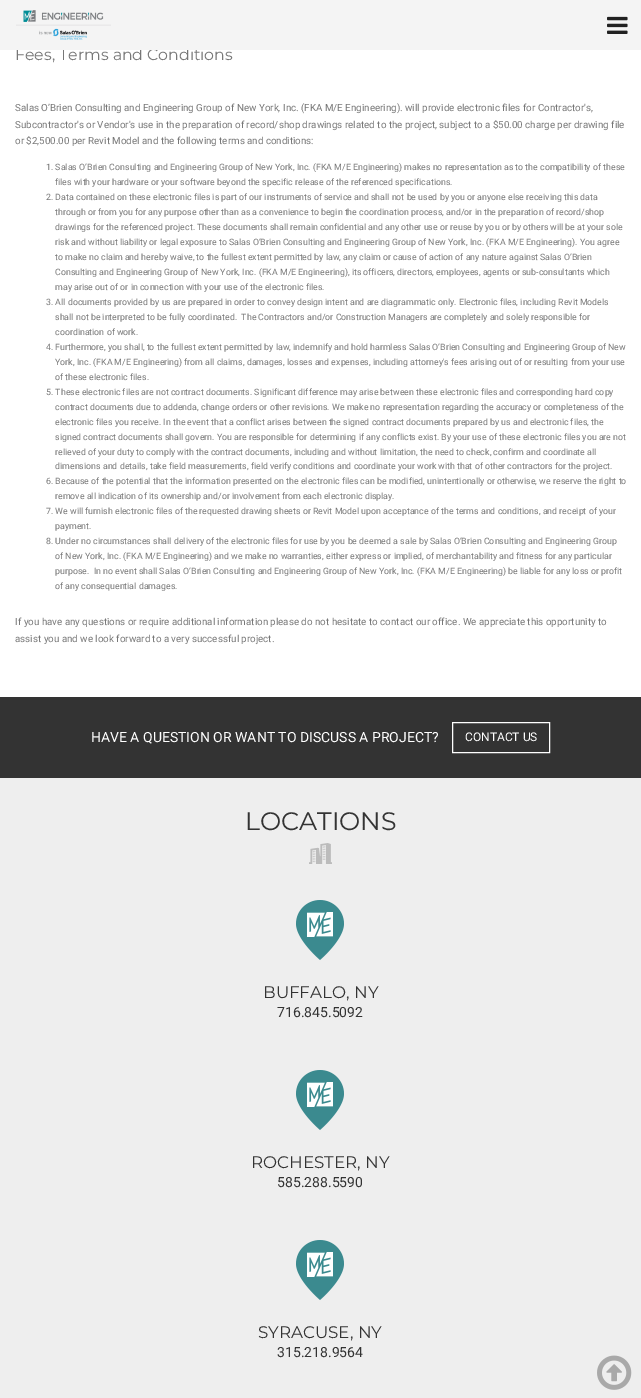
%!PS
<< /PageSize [641 1398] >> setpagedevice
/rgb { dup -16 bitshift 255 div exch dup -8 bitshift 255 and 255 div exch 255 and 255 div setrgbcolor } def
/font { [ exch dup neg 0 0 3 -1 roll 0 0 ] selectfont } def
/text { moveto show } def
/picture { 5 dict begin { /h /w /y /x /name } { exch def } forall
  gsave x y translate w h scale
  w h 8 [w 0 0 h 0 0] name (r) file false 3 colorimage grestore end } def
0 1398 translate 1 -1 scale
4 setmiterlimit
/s1 { /Montserrat-Thin 15.75 font 16#777777 rgb } def
/s2 { /Roboto-Regular 9.8 font 16#777777 rgb } def
/s3 { /Roboto-Regular 8.82 font 16#777777 rgb } def
/s4 { /Roboto-Regular 14 font 16#FFFFFF rgb } def
/s5 { /Roboto-Regular 12 font 16#FFFFFF rgb } def
/s6 { /Montserrat-Thin 25.25 font 16#333333 rgb } def
/s7 { /Montserrat-Thin 16.75 font 16#333333 rgb } def
/s8 { /Roboto-Regular 14 font 16#333333 rgb } def
16#FFFFFF rgb
0 0 641 1398 rectfill
s1
(Fees, Terms and Conditions) 15 60 text
16#F4F4F4 rgb
0 0 641 50 rectfill
(pic1.raw) 16 10 95 30 picture
(pic2.raw) 607 16 21 18 picture
s2
(Salas O’Brien Consulting and Engineering Group of New York, Inc. \(FKA M/E Engineering\). will provide electronic files for Contractor's,) 15 111 text
(Subcontractor's or Vendor's use in the preparation of record/shop drawings related to the project, subject to a $50.00 charge per drawing file) 15 128 text
(or $2,500.00 per Revit Model and the following terms and conditions:) 15 144 text
s3
(1. Salas O’Brien Consulting and Engineering Group of New York, Inc. \(FKA M/E Engineering\) makes no representation as to the compatibility of these) 46 170 text
(files with your hardware or your software beyond the specific release of the referenced specifications.) 55 185 text
(2. Data contained on these electronic files is part of our instruments of service and shall not be used by you or anyone else receiving this data) 46 200 text
(through or from you for any purpose other than as a convenience to begin the coordination process, and/or in the preparation of record/shop) 55 215 text
(drawings for the referenced project. These documents shall remain confidential and any other use or reuse by you or by others will be at your sole) 55 230 text
(risk and without liability or legal exposure to Salas O’Brien Consulting and Engineering Group of New York, Inc. \(FKA M/E Engineering\). You agree) 55 245 text
(to make no claim and hereby waive, to the fullest extent permitted by law, any claim or cause of action of any nature against Salas O’Brien) 55 260 text
(Consulting and Engineering Group of New York, Inc. \(FKA M/E Engineering\), its officers, directors, employees, agents or sub-consultants which) 55 275 text
(may arise out of or in connection with your use of the electronic files.) 55 290 text
(3. All documents provided by us are prepared in order to convey design intent and are diagrammatic only. Electronic files, including Revit Models) 46 305 text
(shall not be interpreted to be fully coordinated.  The Contractors and/or Construction Managers are completely and solely responsible for) 55 320 text
(coordination of work.) 55 335 text
(4. Furthermore, you shall, to the fullest extent permitted by law, indemnify and hold harmless Salas O’Brien Consulting and Engineering Group of New) 46 350 text
(York, Inc. \(FKA M/E Engineering\) from all claims, damages, losses and expenses, including attorney's fees arising out of or resulting from your use) 55 365 text
(of these electronic files.) 55 380 text
(5. These electronic files are not contract documents. Significant difference may arise between these electronic files and corresponding hard copy) 46 395 text
(contract documents due to addenda, change orders or other revisions. We make no representation regarding the accuracy or completeness of the) 55 410 text
(electronic files you receive. In the event that a conflict arises between the signed contract documents prepared by us and electronic files, the) 55 425 text
(signed contract documents shall govern. You are responsible for determining if any conflicts exist. By your use of these electronic files you are not) 55 440 text
(relieved of your duty to comply with the contract documents, including and without limitation, the need to check, confirm and coordinate all) 55 455 text
(dimensions and details, take field measurements, field verify conditions and coordinate your work with that of other contractors for the project.) 55 469 text
(6. Because of the potential that the information presented on the electronic files can be modified, unintentionally or otherwise, we reserve the right to) 46 484 text
(remove all indication of its ownership and/or involvement from each electronic display.) 55 499 text
(7. We will furnish electronic files of the requested drawing sheets or Revit Model upon acceptance of the terms and conditions, and receipt of your) 46 514 text
(payment.) 55 529 text
(8. Under no circumstances shall delivery of the electronic files for use by you be deemed a sale by Salas O’Brien Consulting and Engineering Group) 46 544 text
(of New York, Inc. \(FKA M/E Engineering\) and we make no warranties, either express or implied, of merchantability and fitness for any particular) 55 559 text
(purpose.  In no event shall Salas O’Brien Consulting and Engineering Group of New York, Inc. \(FKA M/E Engineering\) be liable for any loss or profit) 55 574 text
(of any consequential damages.) 55 589 text
s2
(If you have any questions or require additional information please do not hesitate to contact our office. We appreciate this opportunity to) 15 625 text
(assist you and we look forward to a very successful project.) 15 642 text
16#333333 rgb
0 697 641 81 rectfill
s4
(HAVE A QUESTION OR WANT TO DISCUSS A PROJECT?) 91 742 text
452.5 722.5 97 30 rectstroke
s5
(CONTACT US) 465 741 text
16#EEEEEE rgb
0 778 641 620 rectfill
s6
(LOCATIONS) 245 830 text
(pic3.raw) 309 843 23 21 picture
(pic4.raw) 296 900 48 60 picture
s7
(BUFFALO, NY) 263 998 text
s8
(716.845.5092) 277 1017 text
(pic4.raw) 296 1070 48 60 picture
s7
(ROCHESTER, NY) 251 1168 text
s8
(585.288.5590) 277 1187 text
(pic4.raw) 296 1240 48 60 picture
s7
(SYRACUSE, NY) 258 1338 text
s8
(315.218.9564) 277 1357 text
(pic5.raw) 597 1355 35 35 picture
showpage
